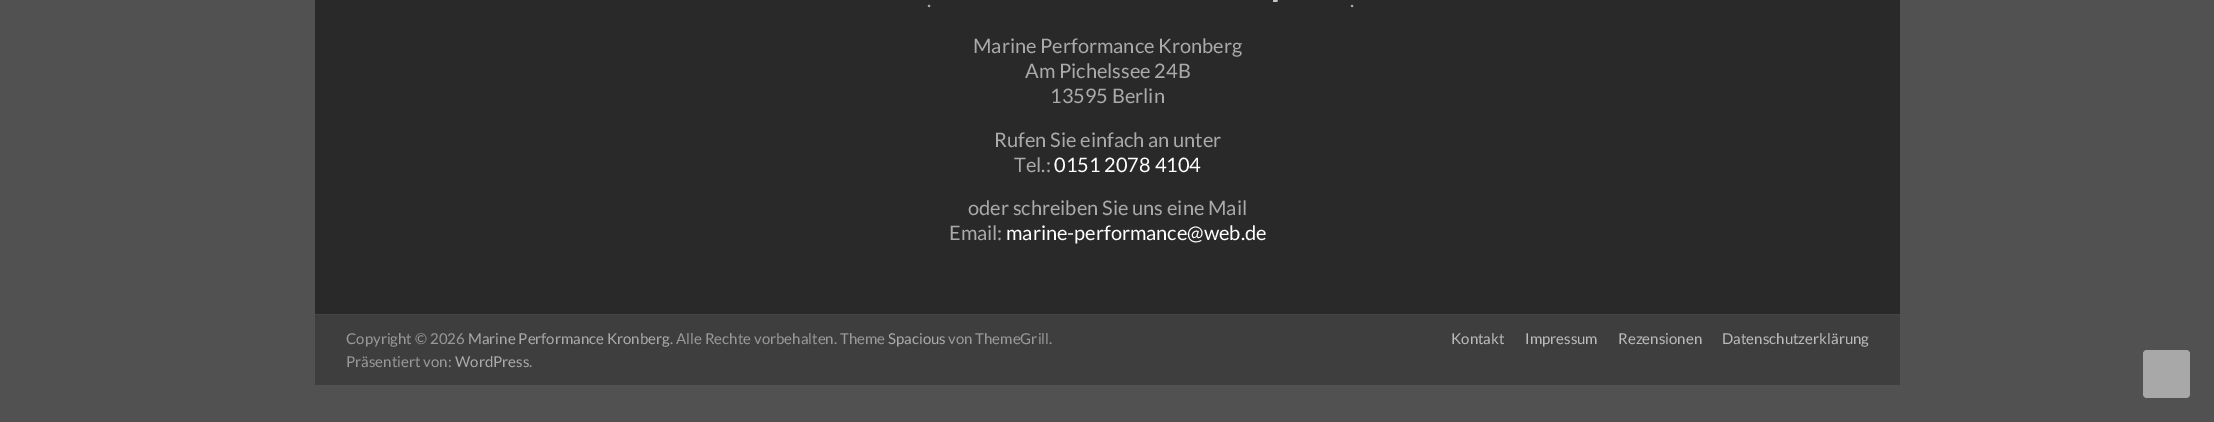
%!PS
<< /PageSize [2214 422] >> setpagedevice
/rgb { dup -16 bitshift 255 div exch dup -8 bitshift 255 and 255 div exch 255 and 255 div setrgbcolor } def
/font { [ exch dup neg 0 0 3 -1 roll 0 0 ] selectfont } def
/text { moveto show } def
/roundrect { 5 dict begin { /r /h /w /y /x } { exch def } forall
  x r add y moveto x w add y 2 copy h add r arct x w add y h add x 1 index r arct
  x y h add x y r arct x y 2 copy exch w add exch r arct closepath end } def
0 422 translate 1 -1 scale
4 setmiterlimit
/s1 { /Lato-Italic 20 font 16#FFFFFF rgb } def
/s2 { /Lato-Regular 20 font 16#AAAAAA rgb } def
/s3 { /Lato-Regular 20 font 16#FFFFFF rgb } def
/s4 { /Lato-Regular 15 font 16#999999 rgb } def
/s5 { /Lato-Regular 15 font 16#AAAAAA rgb } def
/s6 { /Lato-Regular 15 font 16#BBBBBB rgb } def
16#515151 rgb
0 0 2214 422 rectfill
16#292929 rgb
315 0 1585 314 rectfill
s1
(-) 1272 7 text
s2
(.) 927 7 text
(.) 1350 7 text
(Marine Performance Kronberg) 973 53 text
(Am Pichelssee 24B) 1025 78 text
(13595 Berlin) 1050 103 text
(Rufen Sie einfach an unter) 994 147 text
(Tel.:) 1014 172 text
s3
(0151 2078 4104) 1054 172 text
s2
(oder schreiben Sie uns eine Mail) 968 215 text
(Email:) 949 240 text
s3
(marine-performance@web.de) 1006 240 text
16#3E3E3E rgb
315 315 1585 70 rectfill
16#444444 rgb
315 314 1585 1 rectfill
s4
(Copyright © 2026) 346 344 text
s5
(Marine Performance Kronberg) 468 344 text
s4
(. Alle Rechte vorbehalten. Theme) 670 344 text
s5
(Spacious) 888 344 text
s4
(von ThemeGrill.) 948 344 text
(Präsentiert von:) 346 367 text
s5
(WordPress) 455 367 text
s4
(.) 529 367 text
s6
(Kontakt) 1451 344 text
(Impressum) 1525 344 text
(Rezensionen) 1618 344 text
(Datenschutzerklärung) 1722 344 text
16#A8A8A8 rgb
2143 350 47 48 4 roundrect fill
showpage
